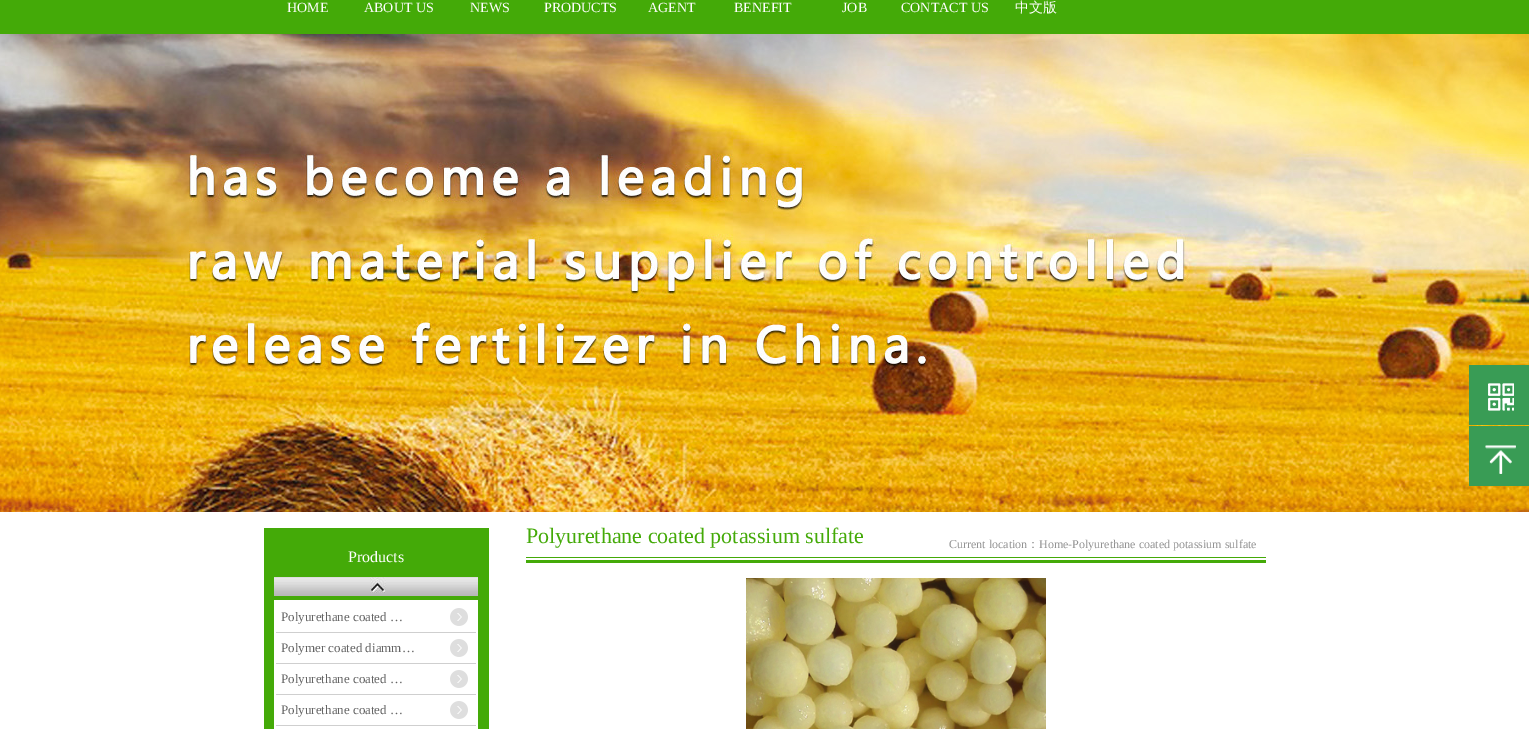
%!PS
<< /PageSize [1529 729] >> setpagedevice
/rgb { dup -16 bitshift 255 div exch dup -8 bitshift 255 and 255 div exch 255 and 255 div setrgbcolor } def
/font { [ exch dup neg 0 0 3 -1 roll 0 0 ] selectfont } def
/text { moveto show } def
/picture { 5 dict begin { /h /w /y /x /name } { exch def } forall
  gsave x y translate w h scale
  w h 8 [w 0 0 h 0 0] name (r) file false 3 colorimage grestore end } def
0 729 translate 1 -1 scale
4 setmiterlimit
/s1 { /LiberationSerif-Regular 14 font 16#FEFEFE rgb } def
/s2 { /WenQuanYiZenHei-Medium 14 font 16#FEFEFE rgb } def
/s3 { /LiberationSerif-Regular 22 font 16#44AA08 rgb } def
/s4 { /LiberationSerif-Regular 12 font 16#939393 rgb } def
/s5 { /WenQuanYiZenHei-Medium 12 font 16#939393 rgb } def
/s6 { /LiberationSerif-Regular 16 font 16#FEFEFE rgb } def
/s7 { /LiberationSerif-Regular 13 font 16#646464 rgb } def
16#FFFFFF rgb
0 0 1529 729 rectfill
16#44AA08 rgb
0 0 1529 34 rectfill
s1
(HOME) 287 12 text
(ABOUT US) 364 12 text
(NEWS) 470 12 text
(PRODUCTS) 544 12 text
(AGENT) 648 12 text
(BENEFIT) 734 12 text
(JOB) 842 12 text
(CONTACT US) 901 12 text
s2
(中文版) 1015 12 text
(pic1.raw) 0 34 1529 478 picture
16#399C55 rgb
1469 365 60 60 rectfill
(pic2.raw) 1488 383 26 28 picture
1469 426 60 60 rectfill
(pic3.raw) 1485 445 31 29 picture
(pic4.raw) 526 557 740 6 picture
s3
(Polyurethane coated potassium sulfate) 526 543 text
s4
(Current location) 949 548 text
s5
(：) 1027 548 text
s4
(Home-Polyurethane coated potassium sulfate) 1039 548 text
(pic5.raw) 746 578 300 151 picture
16#44AA08 rgb
264 528 225 201 rectfill
s6
(Products) 348 562 text
(pic6.raw) 274 577 204 19 picture
16#FFFFFF rgb
274 600 204 129 rectfill
(pic7.raw) 450 608 18 18 picture
16#CFCFCF rgb
276 632 200 1 rectfill
s7
(Polyurethane coated …) 281 621 text
(pic7.raw) 450 639 18 18 picture
16#CFCFCF rgb
276 663 200 1 rectfill
s7
(Polymer coated diamm…) 281 652 text
(pic7.raw) 450 670 18 18 picture
16#CFCFCF rgb
276 694 200 1 rectfill
s7
(Polyurethane coated …) 281 683 text
(pic7.raw) 450 701 18 18 picture
16#CFCFCF rgb
276 725 200 1 rectfill
s7
(Polyurethane coated …) 281 714 text
showpage
